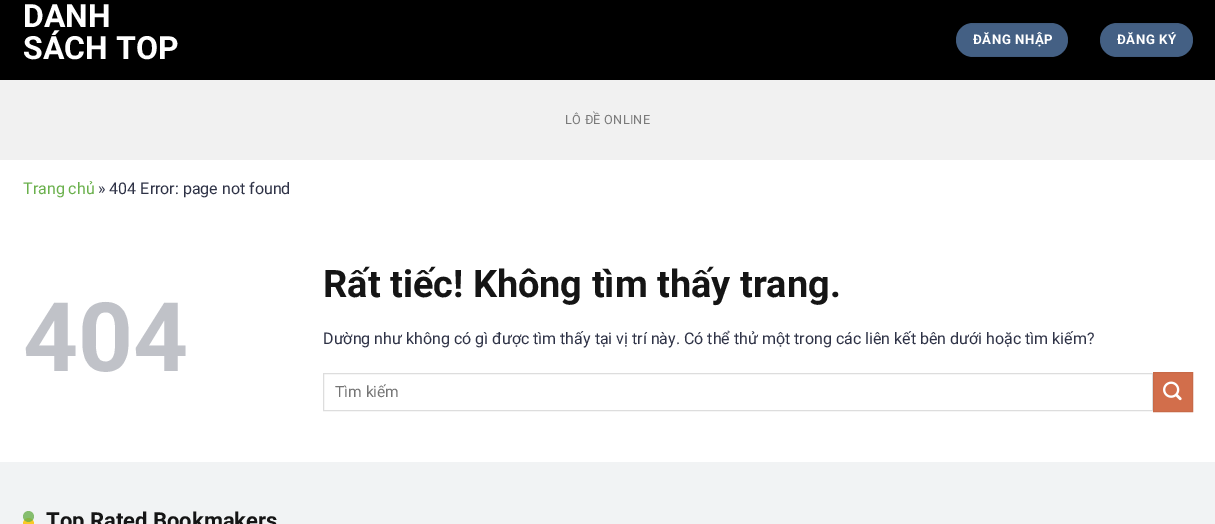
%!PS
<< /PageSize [1215 524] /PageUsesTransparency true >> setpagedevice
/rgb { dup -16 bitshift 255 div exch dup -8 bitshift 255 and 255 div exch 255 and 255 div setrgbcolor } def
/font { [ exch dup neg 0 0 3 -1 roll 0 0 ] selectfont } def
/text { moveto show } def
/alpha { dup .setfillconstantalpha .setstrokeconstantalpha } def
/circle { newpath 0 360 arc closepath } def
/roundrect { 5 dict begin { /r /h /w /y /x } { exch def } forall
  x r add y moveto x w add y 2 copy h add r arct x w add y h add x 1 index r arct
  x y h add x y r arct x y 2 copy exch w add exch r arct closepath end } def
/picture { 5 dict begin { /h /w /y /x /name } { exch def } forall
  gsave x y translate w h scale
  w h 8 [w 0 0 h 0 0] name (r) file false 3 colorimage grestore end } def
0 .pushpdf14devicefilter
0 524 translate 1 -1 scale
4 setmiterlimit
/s1 { /Roboto-Bold 32 font 16#FFFFFF rgb } def
/s2 { /Roboto-Regular 16 font 16#6AB04C rgb } def
/s3 { /Roboto-Regular 16 font 16#2E3246 rgb } def
/s4 { /Roboto-Bold 96 font 16#C0C2C8 rgb } def
/s5 { /Roboto-Bold 37.9 font 16#151515 rgb } def
/s6 { /Roboto-Regular 15.5 font 16#757575 rgb } def
/s7 { /Roboto-Bold 22 font 16#151515 rgb } def
16#FFFFFF rgb
0 0 1215 524 rectfill
16#000000 rgb
0 0 1215 80 rectfill
s1
(DANH) 23 27 text
(SÁCH TOP) 23 59 text
16#446084 rgb
956 23 112 34 17 roundrect fill
0.05 alpha
16#000000 rgb
956.5 23.5 111 33 rectstroke
/Roboto-Bold 13.25 font
1 alpha
16#FFFFFF rgb
973 44 moveto 0.5 0 (ĐĂNG NHẬP) ashow
16#446084 rgb
1100 23 93 34 17 roundrect fill
0.05 alpha
16#000000 rgb
1100.5 23.5 92 33 rectstroke
1 alpha
16#FFFFFF rgb
1117 44 moveto 0.5 0 (ĐĂNG KÝ) ashow
16#F1F1F1 rgb
0 80 1215 80 rectfill
/Roboto-Regular 12.75 font
16#7B7B7B rgb
565 124 moveto 0.25 0 (LÔ ĐỀ ONLINE) ashow
s2
(Trang chủ) 23 194 text
s3
(» 404 Error: page not found) 98 194 text
s4
(404) 23 371 text
s5
(Rất tiếc! Không tìm thấy trang.) 323 297 text
s3
(Dường như không có gì được tìm thấy tại vị trí này. Có thể thử một trong các liên kết bên dưới hoặc tìm kiếm?) 323 344 text
16#DDDDDD rgb
323.5 373.5 829 37 rectstroke
s6
(Tìm kiếm) 335 397 text
16#D26E4B rgb
1153.5 372.5 moveto 1192.5 372.5 lineto 1192.5 411.5 lineto 1153.5 411.5 lineto closepath gsave fill grestore
16#C86947 rgb
stroke
(pic1.raw) 1163 381 19 20 picture
16#F1F3F4 rgb
0 462 1215 62 rectfill
16#F9CA24 rgb
28.5 523.5 5.5 circle fill
0.8 alpha
16#6AB04C rgb
28.5 516.5 5.5 circle fill
1 alpha
s7
(Top Rated Bookmakers) 46 528 text
.poppdf14devicefilter showpage
